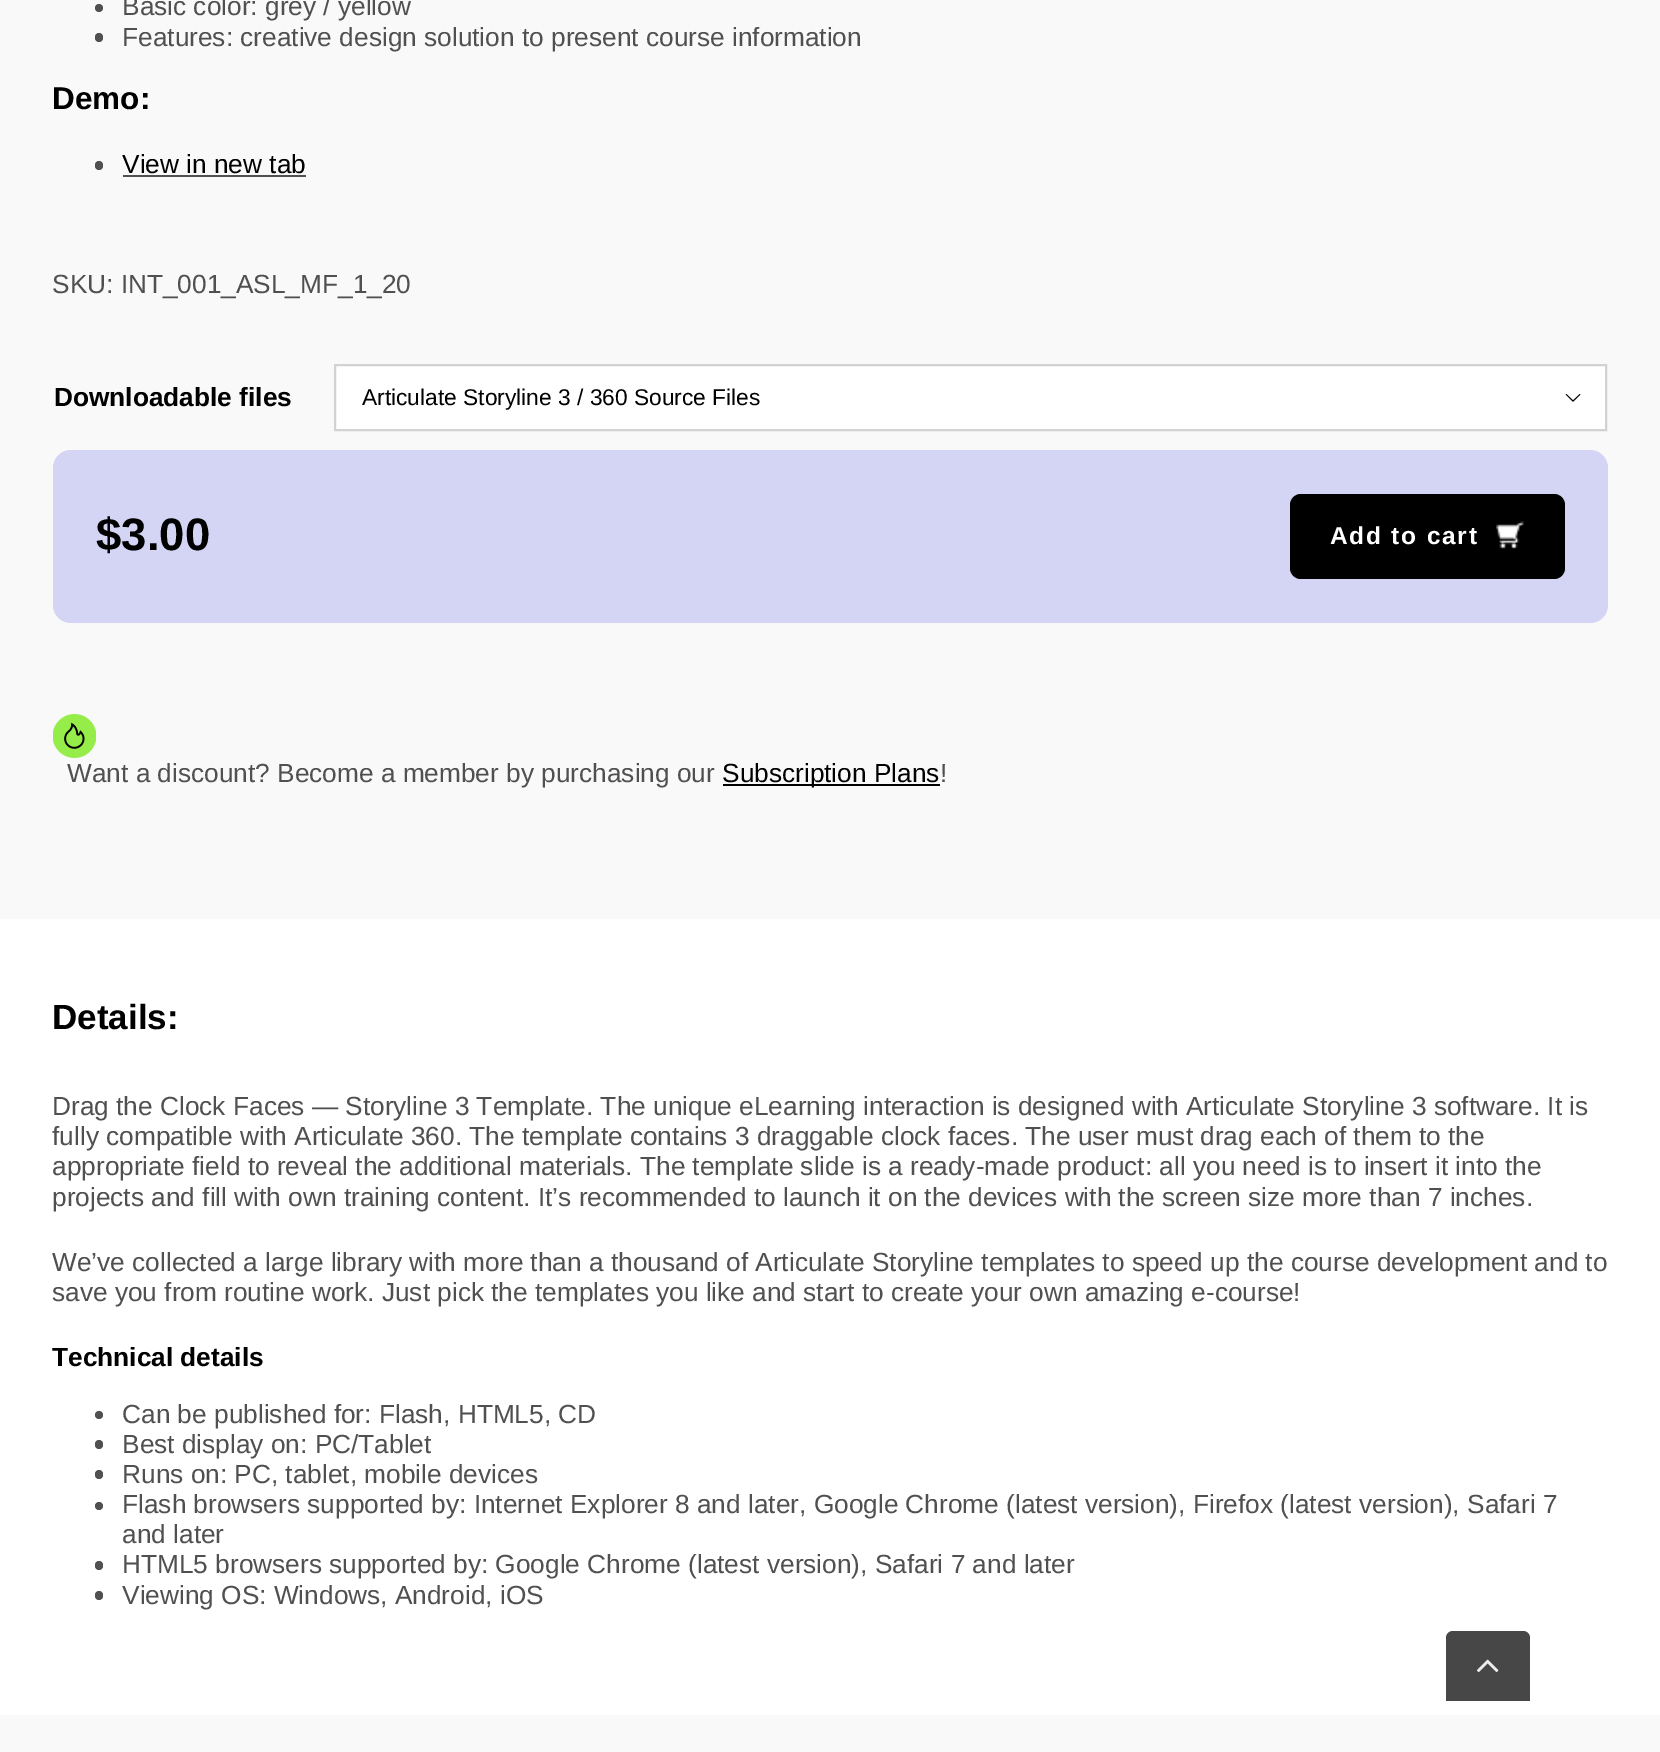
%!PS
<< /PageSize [1660 1752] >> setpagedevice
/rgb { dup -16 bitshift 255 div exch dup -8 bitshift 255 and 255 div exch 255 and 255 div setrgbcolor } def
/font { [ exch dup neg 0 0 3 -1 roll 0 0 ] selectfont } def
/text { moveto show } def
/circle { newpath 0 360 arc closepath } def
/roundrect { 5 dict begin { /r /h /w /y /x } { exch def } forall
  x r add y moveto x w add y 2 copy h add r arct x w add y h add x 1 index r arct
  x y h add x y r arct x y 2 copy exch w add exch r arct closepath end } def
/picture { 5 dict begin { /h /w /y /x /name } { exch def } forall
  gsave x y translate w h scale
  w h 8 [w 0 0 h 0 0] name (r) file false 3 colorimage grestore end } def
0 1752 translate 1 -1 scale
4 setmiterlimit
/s1 { /LiberationSans-Regular 26.25 font 16#505050 rgb } def
/s2 { /LiberationSans-Bold 31.5 font 16#000000 rgb } def
/s3 { /LiberationSans-Regular 26.25 font 16#000000 rgb } def
/s4 { /LiberationSans-Bold 26.25 font 16#000000 rgb } def
/s5 { /LiberationSans-Regular 22.75 font 16#000000 rgb } def
/s6 { /LiberationSans-Bold 45.5 font 16#000000 rgb } def
/s7 { /LiberationSans-Bold 35 font 16#000000 rgb } def
16#FFFFFF rgb
0 0 1660 1752 rectfill
16#F9F9F9 rgb
0 0 1660 919 rectfill
16#505050 rgb
99 8 4 circle fill
s1
(Basic color: grey / yellow) 122 15 text
95 33 8 9 4 roundrect fill
(Features: creative design solution to present course information) 122 46 text
s2
(Demo:) 52 109 text
16#505050 rgb
95 161 8 9 4 roundrect fill
s3
(View in new tab) 122 173 text
16#505050 rgb
123 175 183 2 rectfill
(SKU: INT_001_ASL_MF_1_20) 52 293 text
s4
(Downloadable files) 54 406 text
16#FFFFFF rgb
335 365 moveto 1606 365 lineto 1606 430 lineto 335 430 lineto closepath gsave fill grestore
16#D2D2D2 rgb
2 setlinewidth
stroke
s5
(Articulate Storyline 3 / 360 Source Files) 362 405 text
(pic1.raw) 1565 394 16 8 picture
16#D4D4F5 rgb
53 450 1555 173 18 roundrect fill
s6
($3.00) 96 550 text
1290 494 275 85 11 roundrect fill
/LiberationSans-Bold 24.5 font
16#FFFFFF rgb
1330 544 moveto 1.75 0 (Add to cart) ashow
(pic2.raw) 1496 521 29 28 picture
(pic3.raw) 53 714 43 44 picture
s1
(Want a discount? Become a member by purchasing our) 67 782 text
16#000000 rgb
723 784 217 2 rectfill
(Subscription Plans) 722 782 text
s1
(!) 940 782 text
s7
(Details:) 52 1029 text
s1
(Drag the Clock Faces — Storyline 3 Template. The unique eLearning interaction is designed with Articulate Storyline 3 software. It is) 52 1115 text
(fully compatible with Articulate 360. The template contains 3 draggable clock faces. The user must drag each of them to the) 52 1145 text
(appropriate field to reveal the additional materials. The template slide is a ready-made product: all you need is to insert it into the) 52 1175 text
(projects and fill with own training content. It’s recommended to launch it on the devices with the screen size more than 7 inches.) 52 1206 text
(We’ve collected a large library with more than a thousand of Articulate Storyline templates to speed up the course development and to) 52 1271 text
(save you from routine work. Just pick the templates you like and start to create your own amazing e-course!) 52 1301 text
s4
(Technical details) 52 1366 text
16#505050 rgb
99 1415 4 circle fill
s1
(Can be published for: Flash, HTML5, CD) 122 1423 text
95 1440 8 9 4 roundrect fill
(Best display on: PC/Tablet) 122 1453 text
95 1470 8 9 4 roundrect fill
(Runs on: PC, tablet, mobile devices) 122 1483 text
99 1506 4 circle fill
(Flash browsers supported by: Internet Explorer 8 and later, Google Chrome \(latest version\), Firefox \(latest version\), Safari 7) 122 1513 text
(and later) 122 1543 text
95 1561 8 9 4 roundrect fill
(HTML5 browsers supported by: Google Chrome \(latest version\), Safari 7 and later) 122 1573 text
95 1591 8 9 4 roundrect fill
(Viewing ОS: Windows, Android, iOS) 122 1604 text
16#F9F9F9 rgb
0 1715 1660 37 rectfill
16#474747 rgb
1453 1631 moveto 1523 1631 lineto 1527 1631 1530 1634 1530 1638 curveto 1530 1701 lineto 1446 1701 lineto 1446 1638 lineto 1446 1634 1449 1631 1453 1631 curveto closepath fill
(pic4.raw) 1477 1659 22 14 picture
showpage
